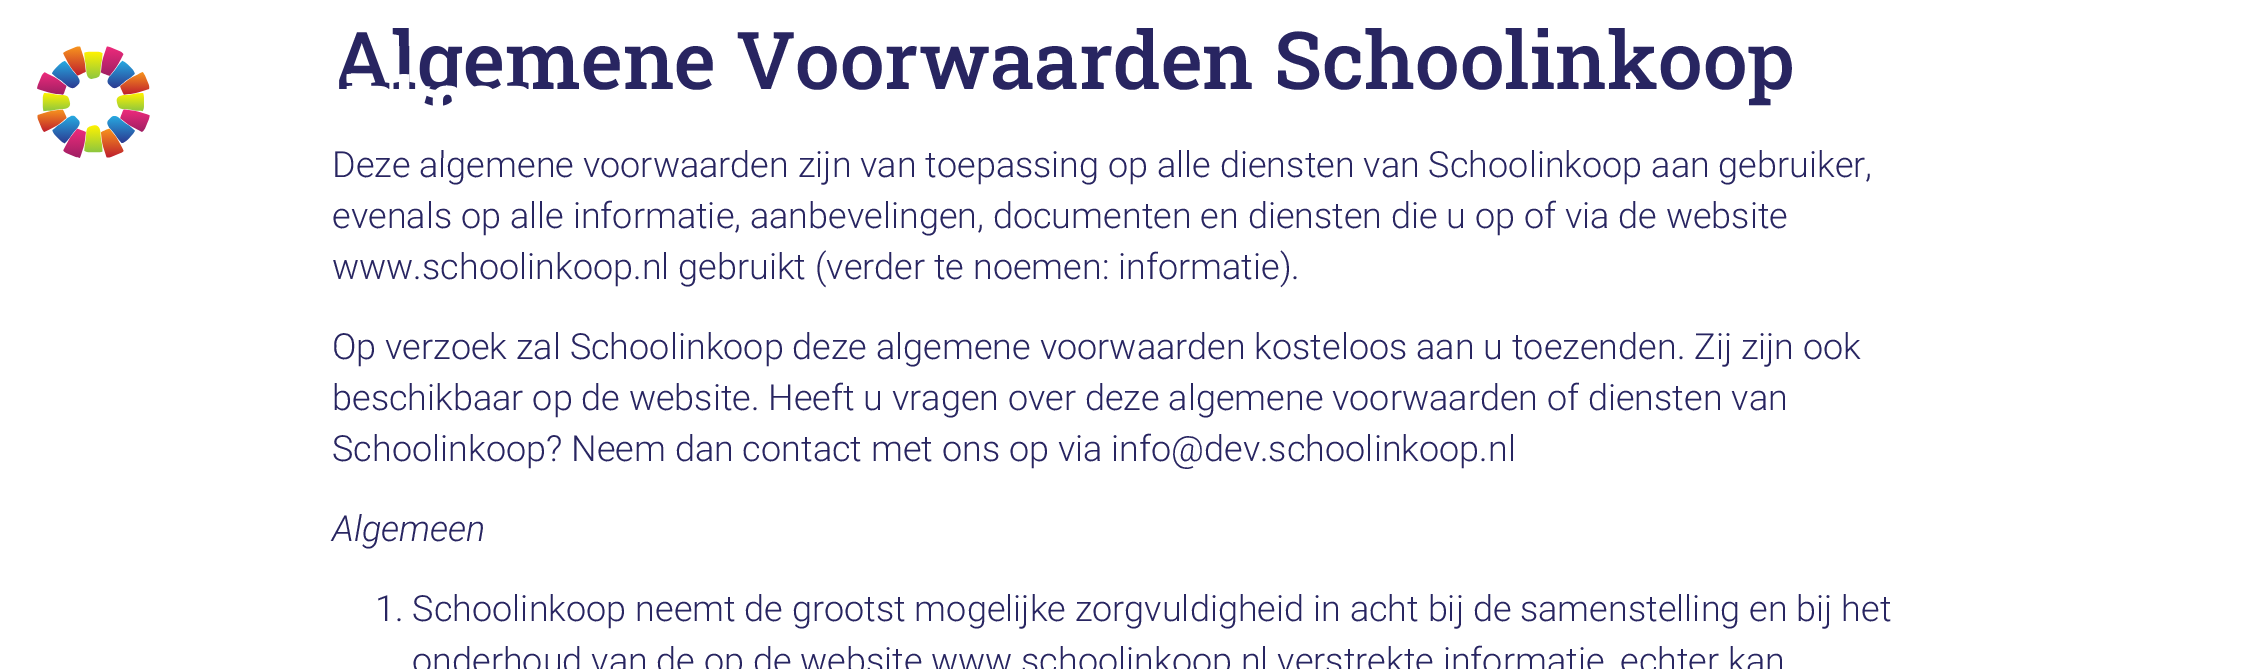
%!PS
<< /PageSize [2263 669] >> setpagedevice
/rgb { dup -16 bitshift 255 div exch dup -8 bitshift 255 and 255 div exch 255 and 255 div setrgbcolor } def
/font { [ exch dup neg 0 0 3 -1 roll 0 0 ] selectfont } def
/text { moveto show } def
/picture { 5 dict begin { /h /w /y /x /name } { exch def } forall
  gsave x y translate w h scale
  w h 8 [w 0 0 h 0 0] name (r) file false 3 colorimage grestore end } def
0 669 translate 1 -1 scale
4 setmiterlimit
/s1 { /RobotoSlab-Medium 80 font 16#282561 rgb } def
/s2 { /Roboto-Light 36 font 16#282561 rgb } def
/s3 { /Roboto-LightItalic 36 font 16#282561 rgb } def
16#FFFFFF rgb
0 0 2263 669 rectfill
s1
(Algemene Voorwaarden Schoolinkoop) 332 89 text
s2
(Deze algemene voorwaarden zijn van toepassing op alle diensten van Schoolinkoop aan gebruiker,) 332 177 text
(pic1.raw) 37 46 490 112 picture
(evenals op alle informatie, aanbevelingen, documenten en diensten die u op of via de website) 332 228 text
(www.schoolinkoop.nl gebruikt \(verder te noemen: informatie\).) 332 279 text
(Op verzoek zal Schoolinkoop deze algemene voorwaarden kosteloos aan u toezenden. Zij zijn ook) 332 359 text
(beschikbaar op de website. Heeft u vragen over deze algemene voorwaarden of diensten van) 332 410 text
(Schoolinkoop? Neem dan contact met ons op via info@dev.schoolinkoop.nl) 332 461 text
s3
(Algemeen) 332 541 text
s2
(1. Schoolinkoop neemt de grootst mogelijke zorgvuldigheid in acht bij de samenstelling en bij het) 375 621 text
(onderhoud van de op de website www.schoolinkoop.nl verstrekte informatie, echter kan) 412 673 text
showpage
